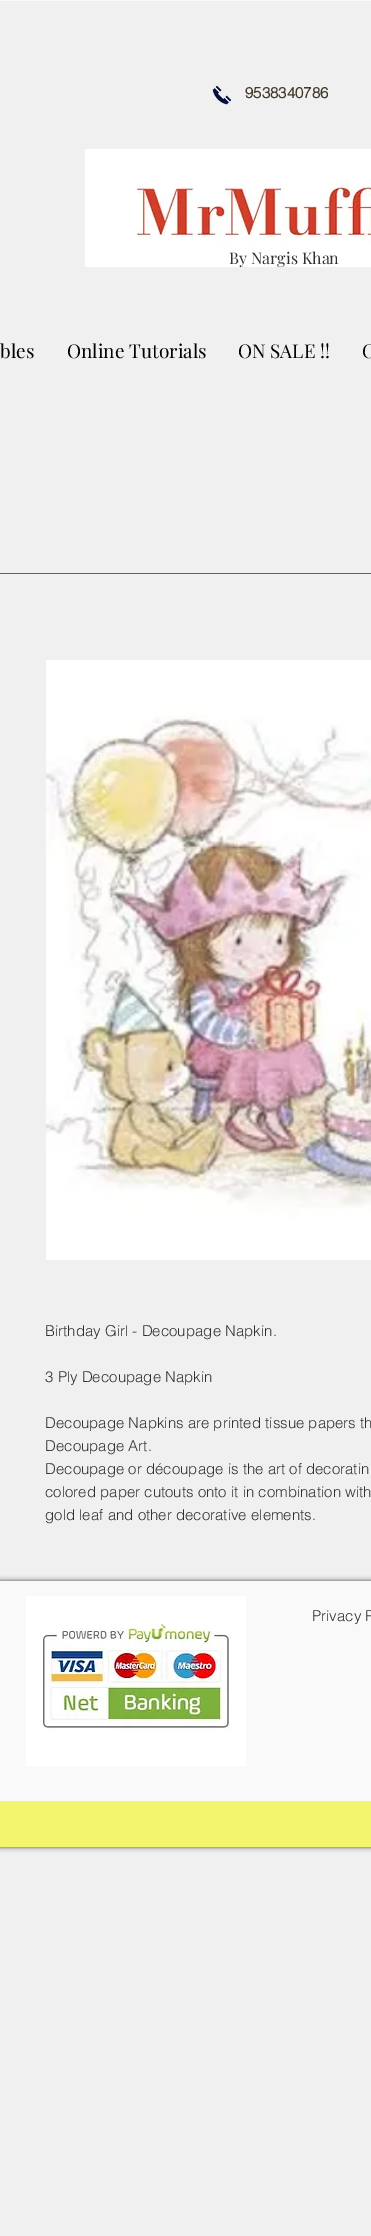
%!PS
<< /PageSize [371 2236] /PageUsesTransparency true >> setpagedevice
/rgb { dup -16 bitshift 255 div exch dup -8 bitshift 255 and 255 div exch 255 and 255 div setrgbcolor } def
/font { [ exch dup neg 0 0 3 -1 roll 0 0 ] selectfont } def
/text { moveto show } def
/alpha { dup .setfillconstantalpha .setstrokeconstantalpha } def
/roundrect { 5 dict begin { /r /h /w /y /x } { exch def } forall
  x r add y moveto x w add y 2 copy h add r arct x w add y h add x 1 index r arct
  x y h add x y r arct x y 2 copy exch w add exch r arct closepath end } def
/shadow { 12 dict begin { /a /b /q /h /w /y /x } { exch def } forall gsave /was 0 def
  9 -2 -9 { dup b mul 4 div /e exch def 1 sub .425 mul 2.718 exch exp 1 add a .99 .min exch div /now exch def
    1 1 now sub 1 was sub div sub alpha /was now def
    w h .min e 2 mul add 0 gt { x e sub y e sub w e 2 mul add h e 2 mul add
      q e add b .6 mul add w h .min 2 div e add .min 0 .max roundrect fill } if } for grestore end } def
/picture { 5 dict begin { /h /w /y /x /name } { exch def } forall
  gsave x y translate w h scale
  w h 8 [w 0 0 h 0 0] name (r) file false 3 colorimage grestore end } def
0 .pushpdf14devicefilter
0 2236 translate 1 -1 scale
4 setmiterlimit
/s1 { /helvetica-Bold 15 font 16#40392A rgb } def
/s2 { /PlayfairDisplay-Regular 16 font 16#303030 rgb } def
/s3 { /PlayfairDisplay-Regular 19 font 16#000000 rgb } def
/s4 { /helvetica-Light 15 font 16#303030 rgb } def
16#F0F0F0 rgb
0 0 371 2236 rectfill
16#606060 rgb
0 573 371 1 rectfill
16#F9F9F9 rgb
0 0 371 1 rectfill
(pic1.raw) 212 85 20 20 picture
s1
(9538340786) 245 98 text
(pic2.raw) 85 149 286 118 picture
s2
(By Nargis Khan) 229 264 text
s3
(bles) 0 358 text
(Online Tutorials) 67 358 text
(ON SALE !!) 238 358 text
(C) 362 358 text
(pic3.raw) 46 660 325 600 picture
s4
(Birthday Girl - Decoupage Napkin.) 45 1336 text
(3 Ply Decoupage Napkin) 45 1382 text
(Decoupage Napkins are printed tissue papers th) 45 1428 text
(Decoupage Art.) 45 1451 text
(Decoupage or découpage is the art of decoratin) 45 1474 text
(colored paper cutouts onto it in combination with) 45 1497 text
(gold leaf and other decorative elements.) 45 1520 text
16#000000 rgb
0 1581 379 266 0 2.5 0.7 shadow
16#F9F9F9 rgb
0 1581 371 220 rectfill
(pic4.raw) 26 1596 220 170 picture
s4
(Privacy P) 312 1621 text
16#F3F56C rgb
0 1801 371 46 rectfill
.poppdf14devicefilter showpage
